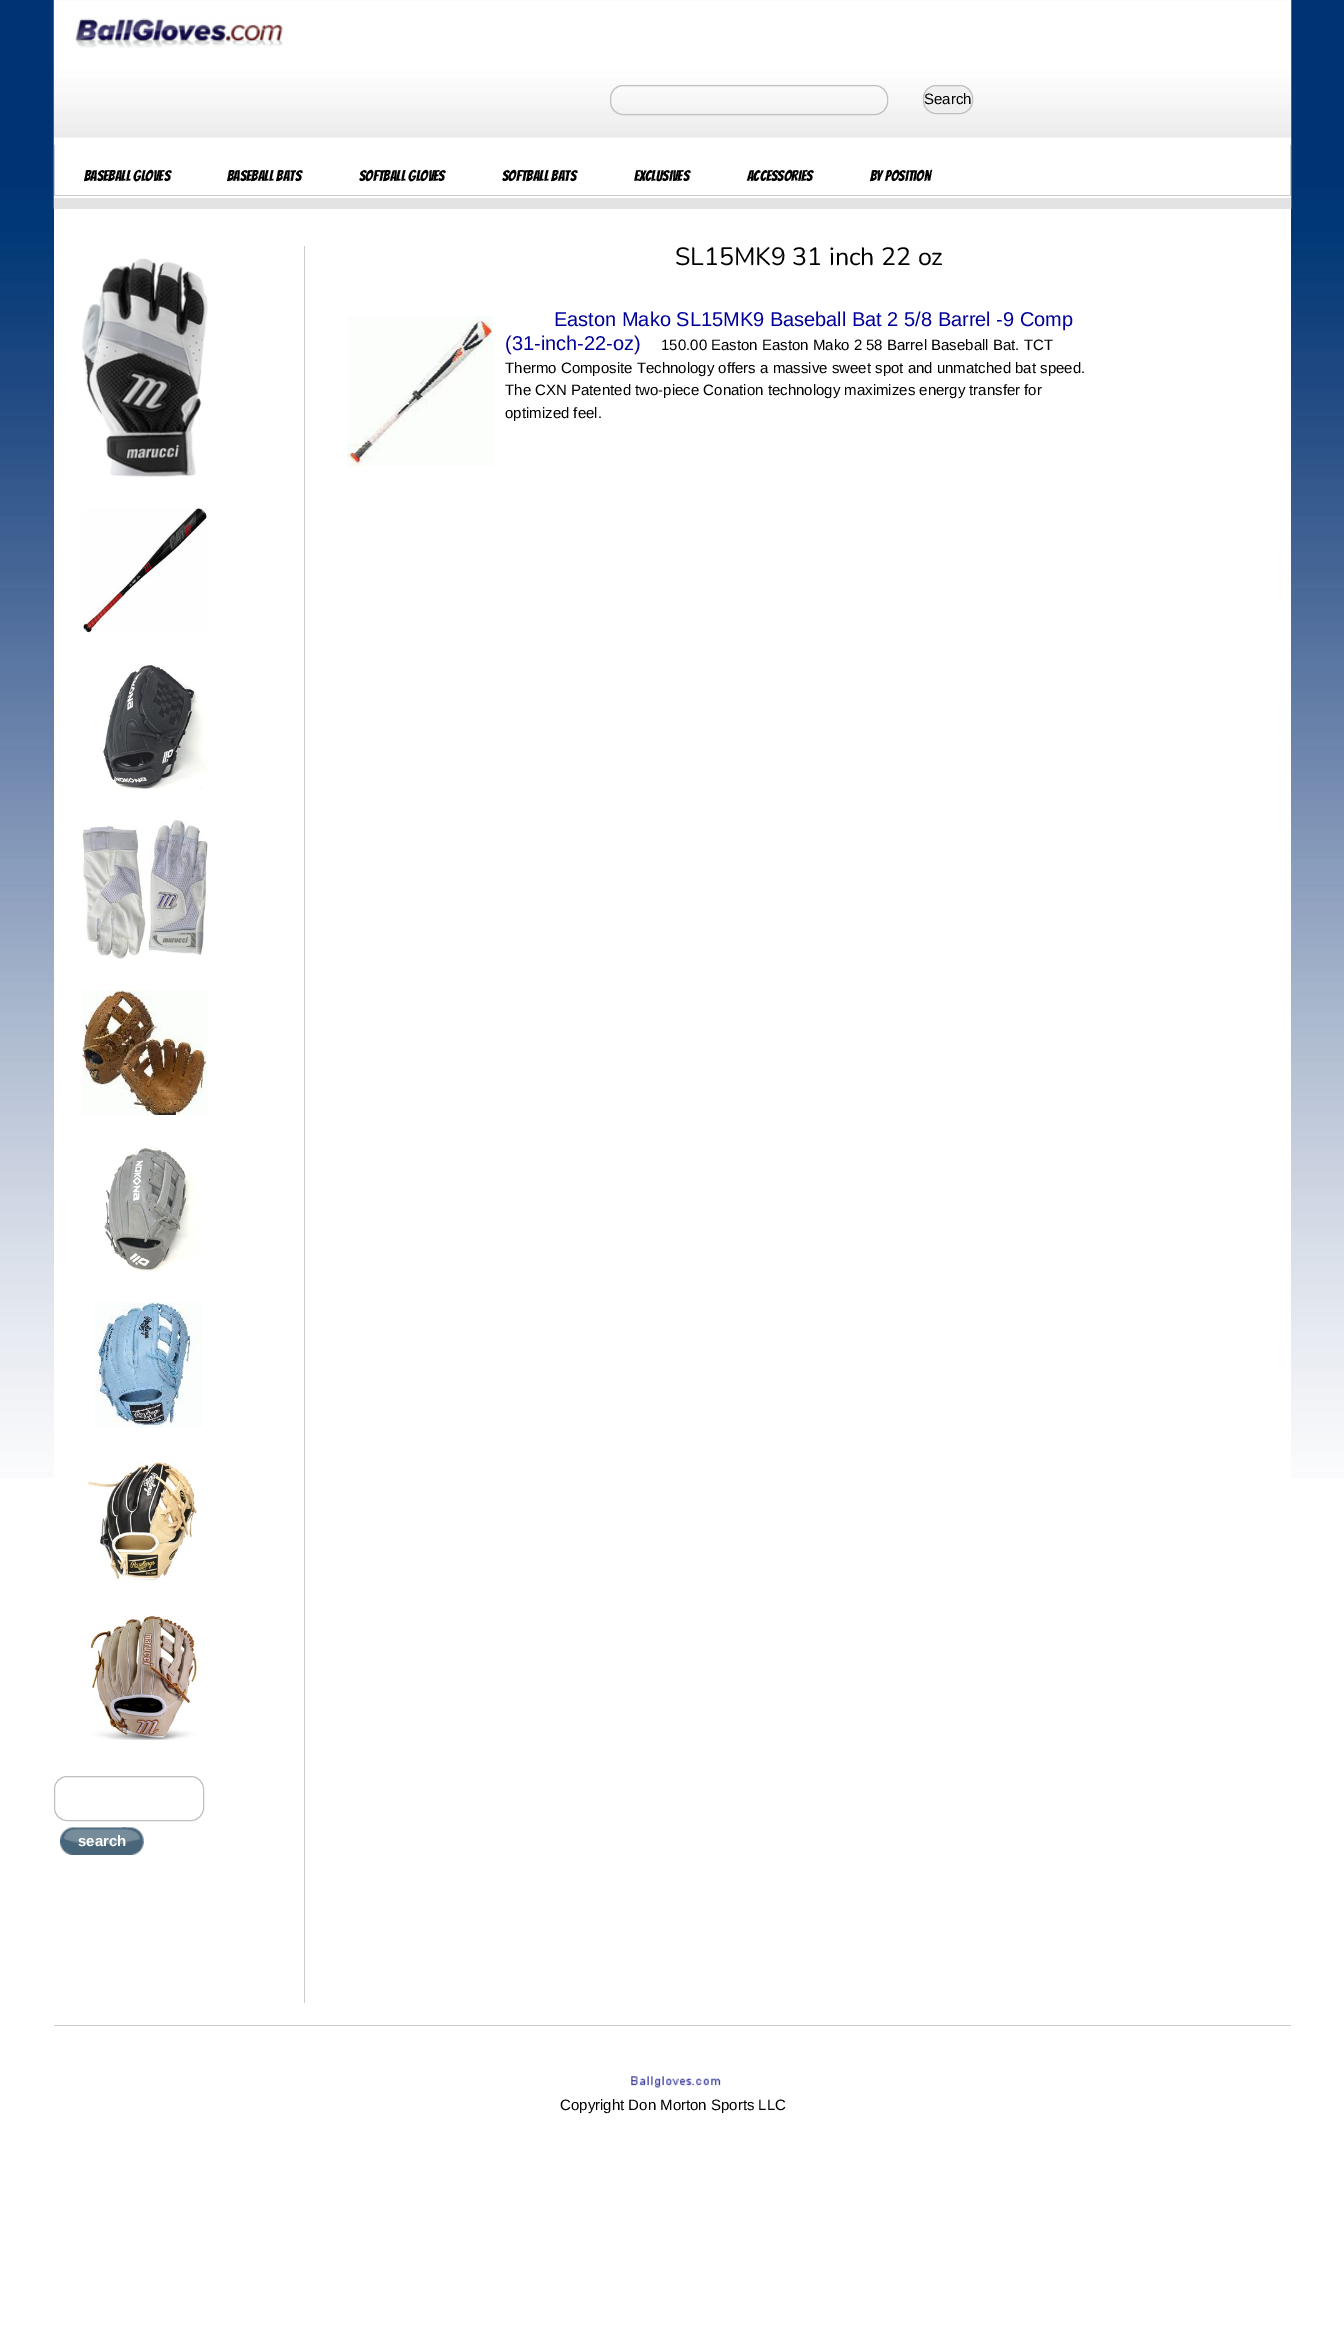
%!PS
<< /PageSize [1344 2339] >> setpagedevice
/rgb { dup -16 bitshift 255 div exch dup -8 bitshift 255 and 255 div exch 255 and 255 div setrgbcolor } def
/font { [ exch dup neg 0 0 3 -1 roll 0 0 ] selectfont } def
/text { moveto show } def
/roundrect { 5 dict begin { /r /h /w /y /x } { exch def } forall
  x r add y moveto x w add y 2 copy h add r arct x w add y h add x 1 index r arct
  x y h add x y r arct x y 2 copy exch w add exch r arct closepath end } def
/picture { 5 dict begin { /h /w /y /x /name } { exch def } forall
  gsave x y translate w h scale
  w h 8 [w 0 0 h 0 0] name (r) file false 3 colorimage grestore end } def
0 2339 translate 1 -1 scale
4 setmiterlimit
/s1 { /LiberationSans-Regular 15 font 16#000000 rgb } def
/s2 { /Bangers-Regular 15 font 16#000000 rgb } def
/s3 { /Nunito-ExtraLight 25 font 16#000000 rgb } def
/s4 { /LiberationSans-Regular 20 font 16#000099 rgb } def
/s5 { /LiberationSans-Bold 15 font 16#FFFFFF rgb } def
16#FFFFFF rgb
0 0 1344 2339 rectfill
(pic1.raw) 0 0 1344 1478 picture
54 209 1237 1269 rectfill
(pic2.raw) 53 0 1239 209 picture
16#E3E3E3 rgb
54 198 1237 11 rectfill
(pic3.raw) 75 18 208 30 picture
16#C0C0C0 rgb
610.5 85.5 277 29 12.5 roundrect stroke
16#EFEFEF rgb
923.5 85.5 49 28 12.5 roundrect gsave fill grestore
16#C0C0C0 rgb
stroke
s1
(Search) 924 104 text
16#CCCCCC rgb
1290 145 1 51 rectfill
54 195 1237 1 rectfill
54 145 1 51 rectfill
s2
(Baseball Gloves) 84 181 text
(Baseball Bats) 227 181 text
(Softball Gloves) 359 181 text
(Softball Bats) 502 181 text
(Exclusives) 634 181 text
(Accessories) 747 181 text
(By Position) 870 181 text
s3
(SL15MK9 31 inch 22 oz) 675 265 text
(pic4.raw) 347 316 146 151 picture
s4
(Easton Mako SL15MK9 Baseball Bat 2 5/8 Barrel -9 Comp) 554 326 text
(\(31-inch-22-oz\)) 505 350 text
s1
(150.00 Easton Easton Mako 2 58 Barrel Baseball Bat. TCT) 661 350 text
(Thermo Composite Technology offers a massive sweet spot and unmatched bat speed.) 505 373 text
(The CXN Patented two-piece Conation technology maximizes energy transfer for) 505 395 text
(optimized feel.) 505 418 text
16#CCCCCC rgb
304 246 1 1757 rectfill
(pic5.raw) 82 258 126 219 picture
(pic6.raw) 82 507 125 126 picture
(pic7.raw) 103 665 105 124 picture
(pic8.raw) 82 820 126 139 picture
(pic9.raw) 82 990 126 125 picture
(pic10.raw) 104 1147 98 125 picture
(pic11.raw) 95 1302 108 126 picture
(pic12.raw) 82 1459 119 122 picture
(pic13.raw) 84 1615 114 125 picture
16#C0C0C0 rgb
54.5 1776.5 149 44 12.5 roundrect stroke
(pic14.raw) 122 1827 22 28 picture
(pic15.raw) 60 1827 67 28 picture
s5
(search) 78 1846 text
16#CCCCCC rgb
54 2025 1237 1 rectfill
(pic16.raw) 631 2076 90 12 picture
s1
(Copyright Don Morton Sports LLC) 560 2110 text
showpage
